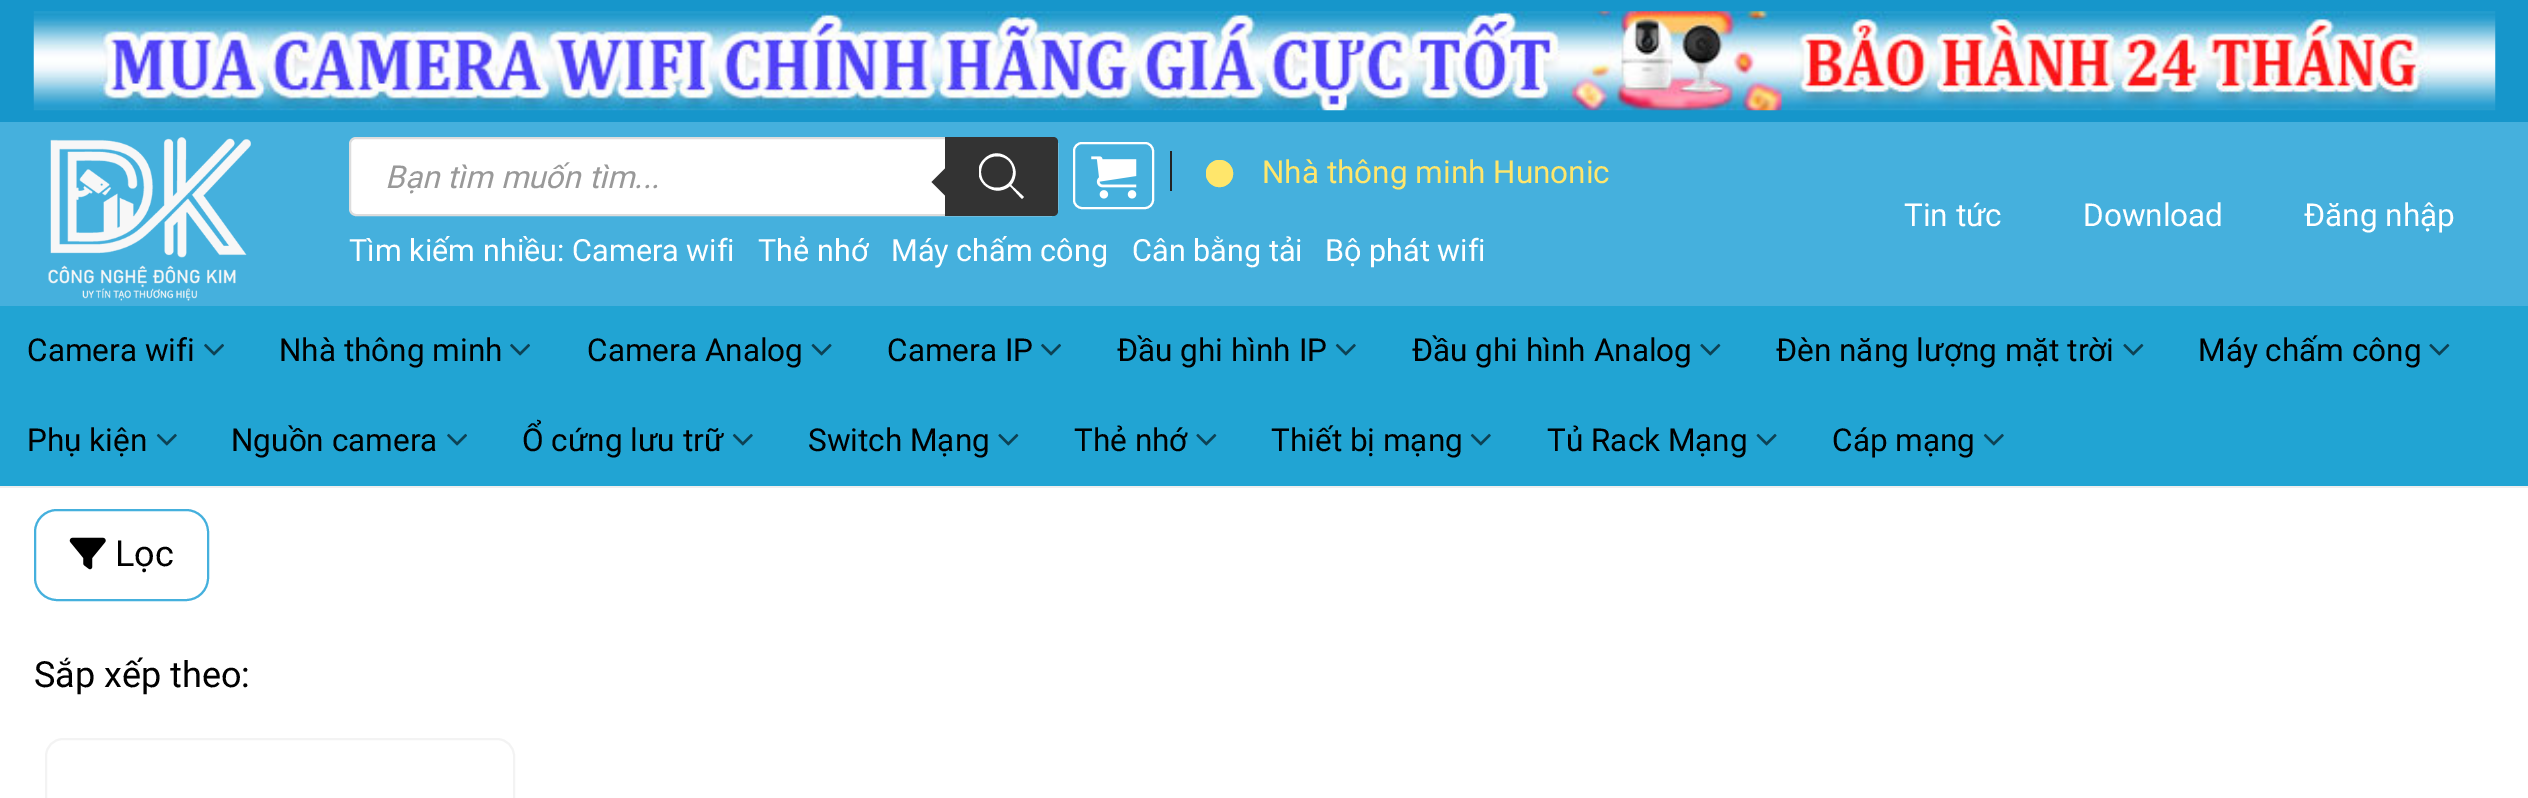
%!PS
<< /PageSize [2528 798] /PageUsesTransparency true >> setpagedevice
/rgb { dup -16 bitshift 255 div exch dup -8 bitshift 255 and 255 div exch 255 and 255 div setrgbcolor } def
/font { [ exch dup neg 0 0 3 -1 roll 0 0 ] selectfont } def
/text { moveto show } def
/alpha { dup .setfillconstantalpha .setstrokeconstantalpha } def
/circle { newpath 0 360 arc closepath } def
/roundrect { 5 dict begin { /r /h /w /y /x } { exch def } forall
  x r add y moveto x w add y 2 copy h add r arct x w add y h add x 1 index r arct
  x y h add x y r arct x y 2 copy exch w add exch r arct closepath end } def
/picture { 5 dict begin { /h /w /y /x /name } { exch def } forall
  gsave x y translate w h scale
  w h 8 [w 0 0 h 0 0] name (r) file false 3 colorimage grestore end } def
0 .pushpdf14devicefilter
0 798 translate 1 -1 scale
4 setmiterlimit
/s1 { /Roboto-Italic 31.5 font 16#999999 rgb } def
/s2 { /Roboto-Regular 31.5 font 16#FFE66B rgb } def
/s3 { /Roboto-Regular 30.6 font 16#FFFFFF rgb } def
/s4 { /Roboto-Regular 31.5 font 16#FFFFFF rgb } def
/s5 { /Roboto-Regular 31.5 font 16#000000 rgb } def
/s6 { /Roboto-Regular 36 font 16#000000 rgb } def
16#FFFFFF rgb
0 0 2528 798 rectfill
16#1696CB rgb
0 0 2528 122 rectfill
(pic1.raw) 33 11 2463 100 picture
16#45B0DD rgb
0 122 2528 184 rectfill
(pic2.raw) 48 137 203 164 picture
16#FFFFFF rgb
350 138 707 77 6 roundrect gsave fill grestore
16#DDDDDD rgb
2 setlinewidth
stroke
s1
(Bạn tìm muốn tìm...) 385 188 text
16#333333 rgb
945 137 moveto 1053 137 lineto 1056 137 1058 139 1058 142 curveto 1058 211 lineto 1058 214 1056 216 1053 216 curveto 945 216 lineto closepath fill
949.5 164 moveto 949.5 200 lineto 931.5 182 lineto closepath fill
gsave
979 151 45 52 rectclip
16#FFFFFF rgb
1024 197 moveto 1011 185 lineto 1026 167 1001 142 984 159 curveto 967 176 992 201 1010 186 curveto 1022 199 lineto closepath 981 172 moveto 981 151 1013 151 1013 172 curveto 1013 193 981 193 981 172 curveto closepath fill
grestore
16#FFFFFF rgb
1074 143 79 65 8 roundrect stroke
(pic3.raw) 1091 156 46 43 picture
16#232323 rgb
1170 151 2 40 rectfill
16#FFE66B rgb
1219.5 173.5 13.5 circle fill
0.2 alpha
1219.5 173.5 12.5 circle fill
1 alpha
1219.5 173.5 12.5 circle stroke
s2
(Nhà thông minh Hunonic) 1262 183 text
s3
(Tìm kiếm nhiều: Camera wifi) 349 261 text
(Thẻ nhớ) 758 261 text
(Máy chấm công) 891 261 text
(Cân bằng tải) 1132 261 text
(Bộ phát wifi) 1325 261 text
s4
(Tin tức) 1904 226 text
(Download) 2083 226 text
(Đăng nhập) 2304 226 text
16#21A4D3 rgb
0 306 2528 180 rectfill
s5
(Camera wifi) 27 361 text
(pic4.raw) 204 343 20 13 picture
(Nhà thông minh) 279 361 text
(pic4.raw) 510 343 20 13 picture
(Camera Analog) 587 361 text
(pic5.raw) 811 343 21 13 picture
(Camera IP) 887 361 text
(pic4.raw) 1041 343 20 13 picture
(Đầu ghi hình IP) 1117 361 text
(pic6.raw) 1335 343 21 13 picture
(Đầu ghi hình Analog) 1412 361 text
(pic7.raw) 1700 343 21 13 picture
(Đèn năng lượng mặt trời) 1776 361 text
(pic7.raw) 2123 343 21 13 picture
(Máy chấm công) 2198 361 text
(pic7.raw) 2429 343 21 13 picture
(Phụ kiện) 27 451 text
(pic6.raw) 156 433 21 13 picture
(Nguồn camera) 231 451 text
(pic4.raw) 447 433 20 13 picture
(Ổ cứng lưu trữ) 522 451 text
(pic6.raw) 732 433 21 13 picture
(Switch Mạng) 808 451 text
(pic7.raw) 998 433 21 13 picture
(Thẻ nhớ) 1074 451 text
(pic7.raw) 1196 433 21 13 picture
(Thiết bị mạng) 1271 451 text
(pic6.raw) 1470 433 21 13 picture
(Tủ Rack Mạng) 1547 451 text
(pic5.raw) 1756 433 21 13 picture
(Cáp mạng) 1832 451 text
(pic6.raw) 1983 433 21 13 picture
16#EEEEEE rgb
0 486 2528 2 rectfill
16#45B0DD rgb
35 510 173 90 22 roundrect stroke
(pic8.raw) 69 537 37 33 picture
s6
(Lọc) 115 566 text
(Sắp xếp theo:) 34 687 text
16#F3F3F3 rgb
46 739 468 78 17 roundrect stroke
.poppdf14devicefilter showpage
